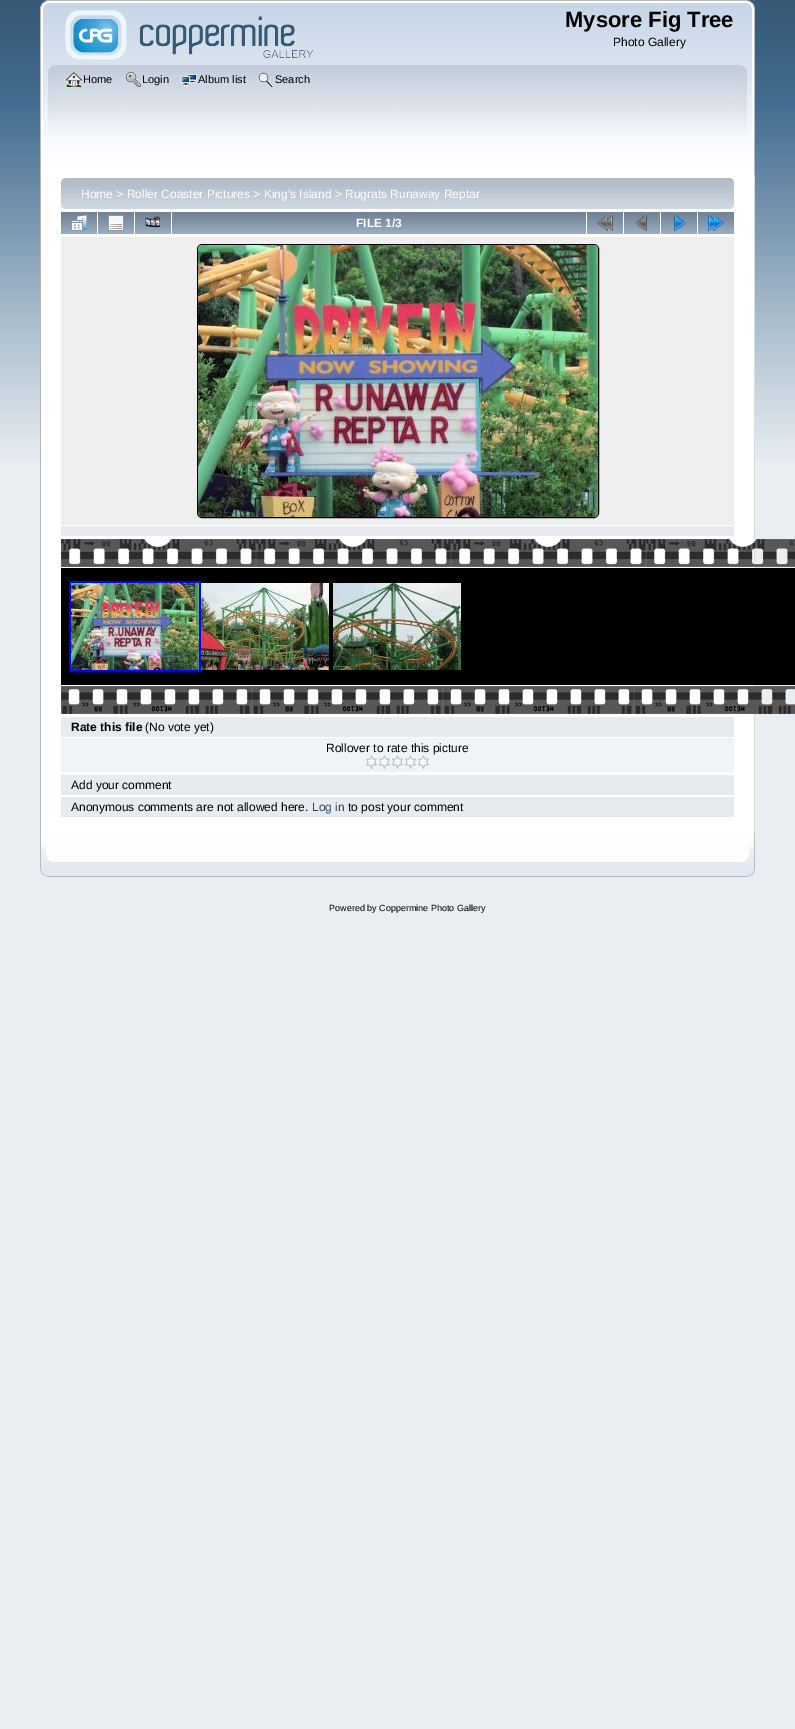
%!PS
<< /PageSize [795 1729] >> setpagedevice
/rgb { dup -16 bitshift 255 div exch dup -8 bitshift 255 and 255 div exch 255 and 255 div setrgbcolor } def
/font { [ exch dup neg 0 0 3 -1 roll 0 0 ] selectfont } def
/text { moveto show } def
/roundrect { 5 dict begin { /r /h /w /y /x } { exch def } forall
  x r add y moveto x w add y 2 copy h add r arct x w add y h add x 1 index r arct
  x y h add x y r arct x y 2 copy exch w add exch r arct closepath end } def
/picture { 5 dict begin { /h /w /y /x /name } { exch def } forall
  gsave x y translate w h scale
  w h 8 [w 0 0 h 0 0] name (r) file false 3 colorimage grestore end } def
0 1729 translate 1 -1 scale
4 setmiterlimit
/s1 { /LiberationSans-Bold 22 font 16#000000 rgb } def
/s2 { /LiberationSans-Regular 12 font 16#000000 rgb } def
/s3 { /LiberationSans-Regular 11 font 16#000000 rgb } def
/s4 { /LiberationSans-Regular 12 font 16#FFFFFF rgb } def
/s5 { /LiberationSans-Bold 12 font 16#FFFFFF rgb } def
/s6 { /LiberationSans-Bold 12 font 16#000000 rgb } def
/s7 { /LiberationSans-Regular 12 font 16#334466 rgb } def
/s8 { /LiberationSans-Regular 9 font 16#000000 rgb } def
16#E9EEF2 rgb
0 0 795 1729 rectfill
(pic1.raw) 0 0 795 462 picture
(pic2.raw) 40 0 707 65 picture
(pic3.raw) 747 0 8 65 picture
(pic4.raw) 65 10 248 50 picture
s1
(Mysore Fig Tree) 565 27 text
s2
(Photo Gallery) 613 46 text
(pic5.raw) 40 65 701 110 picture
(pic6.raw) 741 65 14 110 picture
(pic7.raw) 66 72 16 16 picture
s3
(Home) 83 83 text
(pic8.raw) 126 72 15 15 picture
(Login) 142 83 text
(pic9.raw) 181 74 16 12 picture
(Album list) 198 83 text
(pic10.raw) 258 72 16 15 picture
(Search) 275 83 text
16#FFFFFF rgb
41 175 713 658 rectfill
16#B7B7B7 rgb
40 175 1 658 rectfill
16#DBDBDB rgb
754 175 1 658 rectfill
(pic11.raw) 61 178 669 31 picture
(pic12.raw) 730 178 4 31 picture
s4
(Home > Roller Coaster Pictures > King's Island > Rugrats Runaway Reptar) 81 198 text
(pic13.raw) 61 212 36 22 picture
(pic14.raw) 71 215 16 16 picture
(pic13.raw) 98 212 36 22 picture
(pic15.raw) 108 215 16 16 picture
(pic13.raw) 135 212 36 22 picture
(pic16.raw) 145 216 16 12 picture
(pic17.raw) 172 212 414 22 picture
s5
(FILE 1/3) 356 227 text
(pic13.raw) 587 212 36 22 picture
(pic18.raw) 597 215 16 16 picture
(pic13.raw) 624 212 36 22 picture
(pic19.raw) 635 215 12 16 picture
(pic13.raw) 661 212 36 22 picture
(pic20.raw) 674 215 12 16 picture
(pic13.raw) 698 212 36 22 picture
(pic21.raw) 708 215 16 16 picture
16#EFEFEF rgb
61 237 673 288 rectfill
16#000000 rgb
197.5 244.5 401 273 4.5 roundrect stroke
(pic22.raw) 198 245 400 272 picture
16#E7EAEF rgb
61 526 673 10 rectfill
(pic23.raw) 61 539 734 28 picture
16#000000 rgb
61 568 734 117 rectfill
16#0000FF rgb
2 setlinewidth
70 582 130 89 rectstroke
(pic24.raw) 71 583 128 87 picture
(pic25.raw) 201 583 128 87 picture
(pic26.raw) 333 583 128 87 picture
(pic27.raw) 61 686 734 28 picture
16#E7EAEF rgb
61 717 673 20 rectfill
s6
(Rate this file) 71 731 text
s2
(\(No vote yet\)) 145 731 text
16#F0F4F7 rgb
61 738 673 34 rectfill
s2
(Rollover to rate this picture) 326 752 text
(pic28.raw) 365 755 13 14 picture
(pic28.raw) 378 755 13 14 picture
(pic28.raw) 391 755 13 14 picture
(pic28.raw) 404 755 13 14 picture
(pic28.raw) 417 755 13 14 picture
16#E7EAEF rgb
61 775 673 20 rectfill
s2
(Add your comment) 71 789 text
16#E7EAEF rgb
61 797 673 20 rectfill
s2
(Anonymous comments are not allowed here.) 71 811 text
s7
(Log in) 312 811 text
s2
(to post your comment) 348 811 text
(pic29.raw) 40 833 702 44 picture
(pic30.raw) 742 833 13 44 picture
s8
(Powered by Coppermine Photo Gallery) 329 911 text
showpage
